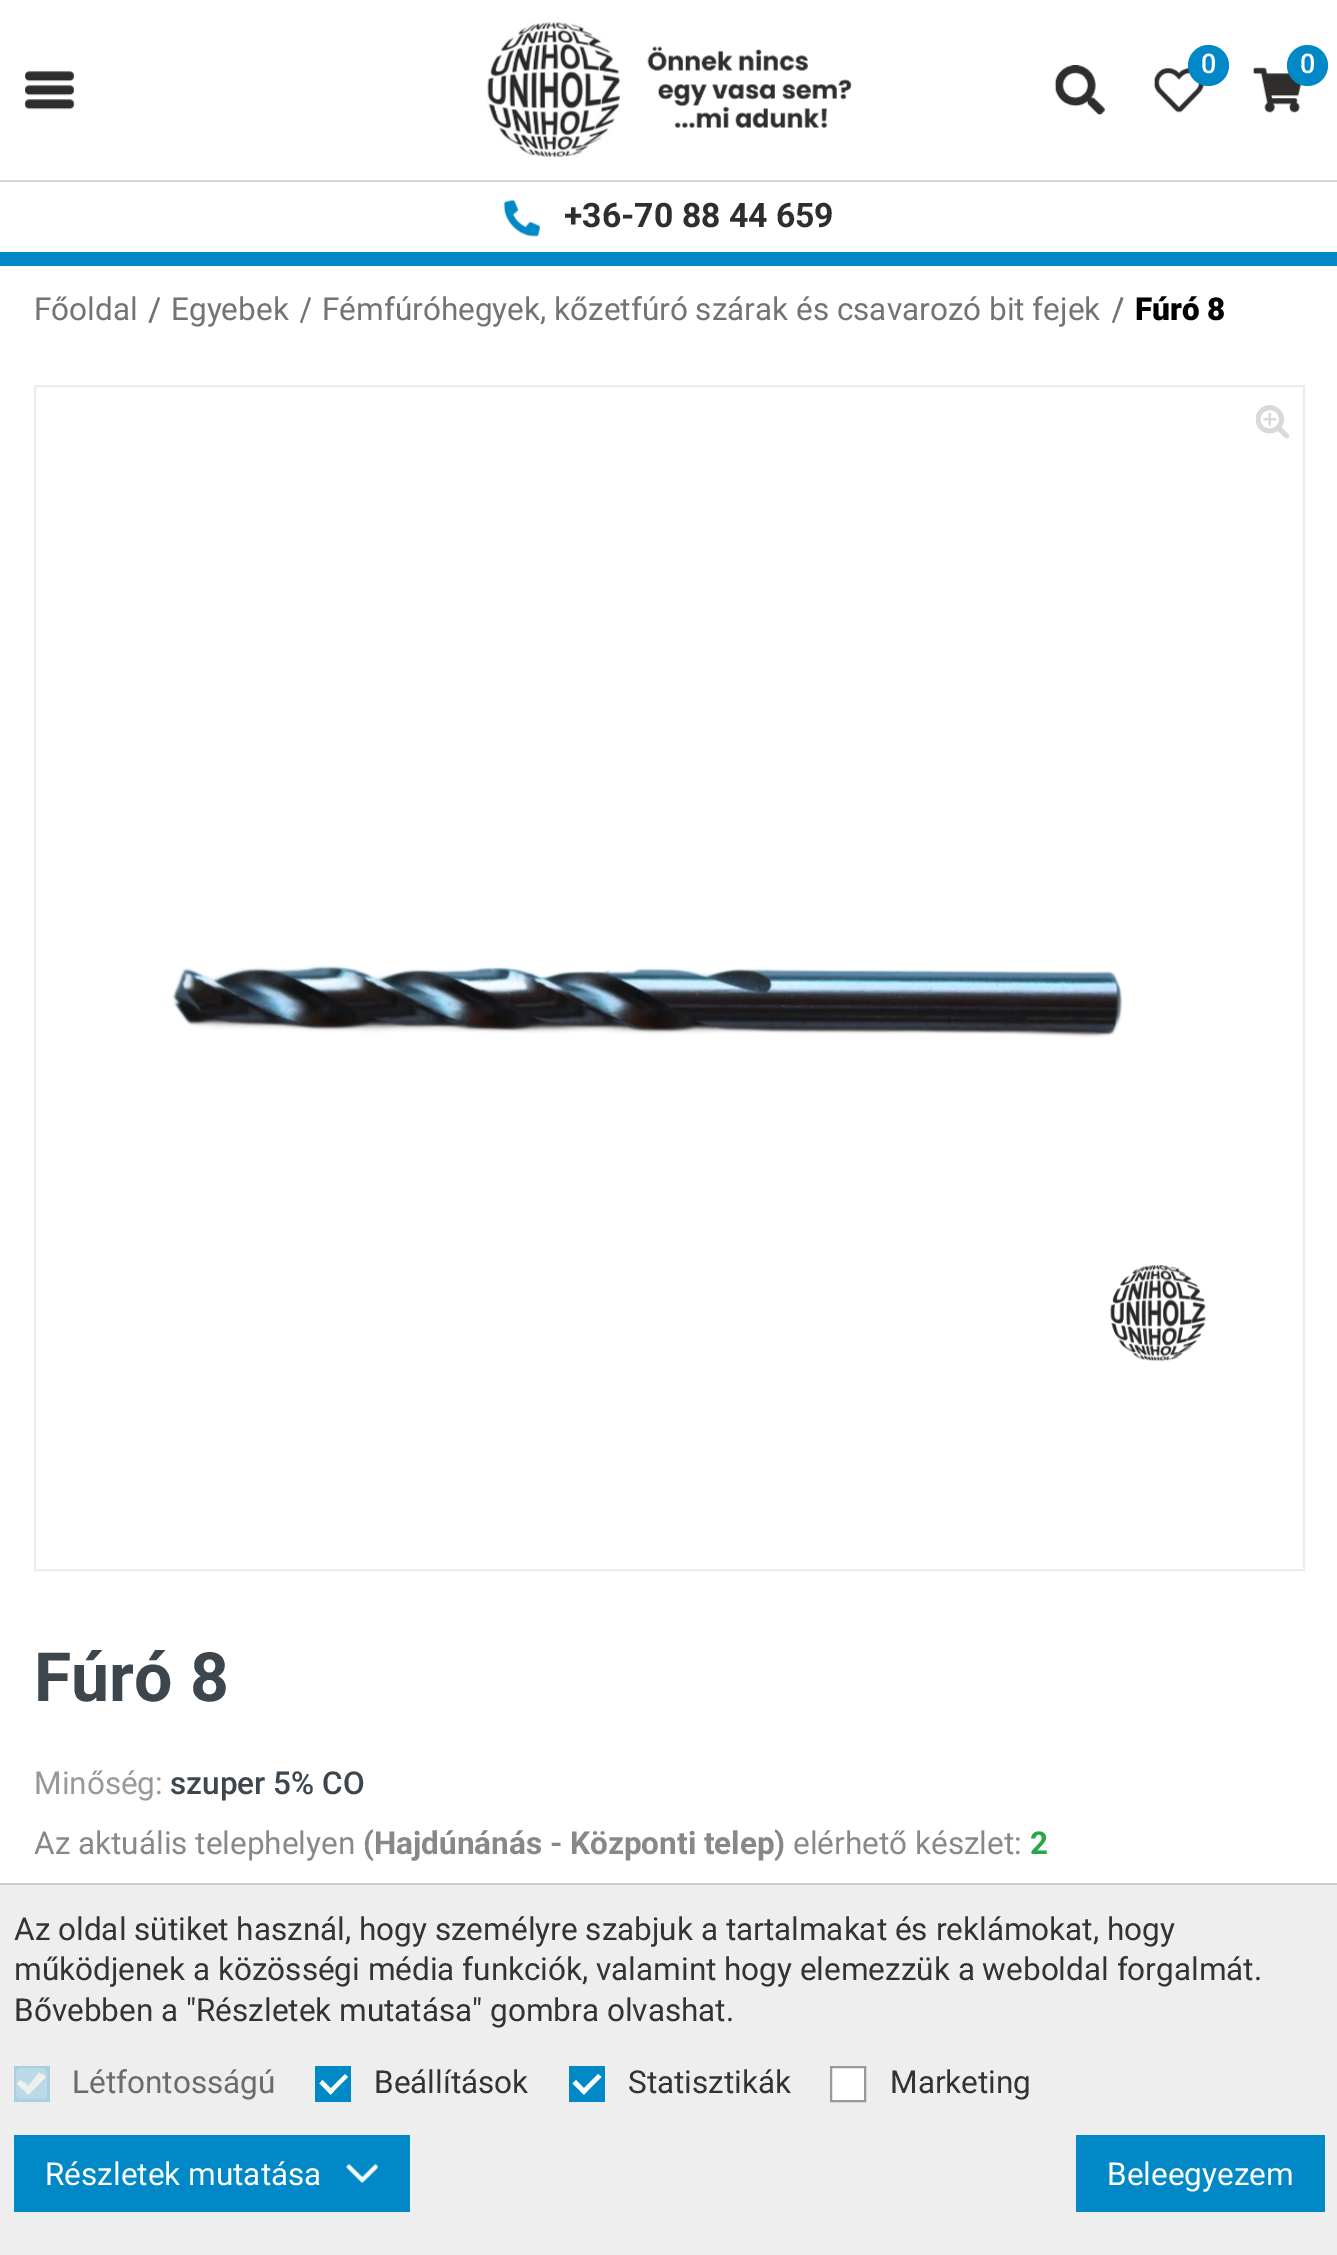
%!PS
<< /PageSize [1337 2255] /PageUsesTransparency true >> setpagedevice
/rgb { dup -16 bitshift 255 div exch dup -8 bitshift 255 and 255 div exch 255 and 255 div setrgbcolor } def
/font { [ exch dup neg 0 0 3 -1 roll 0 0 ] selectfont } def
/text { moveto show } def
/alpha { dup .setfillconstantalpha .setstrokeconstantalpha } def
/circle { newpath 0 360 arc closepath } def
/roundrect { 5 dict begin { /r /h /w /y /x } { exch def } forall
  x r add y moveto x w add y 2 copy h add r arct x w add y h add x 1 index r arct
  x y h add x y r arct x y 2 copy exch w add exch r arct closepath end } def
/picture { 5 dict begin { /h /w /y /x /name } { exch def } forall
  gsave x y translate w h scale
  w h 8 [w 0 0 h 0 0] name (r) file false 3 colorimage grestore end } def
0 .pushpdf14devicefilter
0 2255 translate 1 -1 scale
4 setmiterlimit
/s1 { /Roboto-Medium 27 font 16#FFFFFF rgb } def
/s2 { /Roboto-Bold 33.75 font 16#302E2C rgb } def
/s3 { /Roboto-Regular 31.5 font 16#737373 rgb } def
/s4 { /Roboto-Black 31.5 font 16#000000 rgb } def
/s5 { /Roboto-Bold 68 font 16#3D464D rgb } def
/s6 { /Roboto-Regular 31.5 font 16#99999C rgb } def
/s7 { /Roboto-Medium 31.5 font 16#3D464D rgb } def
/s8 { /Roboto-Regular 31.5 font 16#888888 rgb } def
/s9 { /Roboto-Bold 31.5 font 16#888888 rgb } def
/s10 { /Roboto-Bold 31.5 font 16#28A745 rgb } def
/s11 { /Roboto-Regular 31.5 font 16#333333 rgb } def
/s12 { /Roboto-Regular 31.5 font 16#6B6B6B rgb } def
/s13 { /Roboto-Regular 31.5 font 16#FFFFFF rgb } def
16#FFFFFF rgb
0 0 1337 2255 rectfill
16#0089C6 rgb
0 252 1337 14 rectfill
(pic1.raw) 25 71 50 39 picture
(pic2.raw) 487 22 365 136 picture
(pic3.raw) 1054 65 51 50 picture
(pic4.raw) 1153 68 51 45 picture
1208.5 65.5 20.5 circle fill
s1
(0) 1201 73 text
(pic5.raw) 1252 67 50 46 picture
16#0089C6 rgb
1307.5 65.5 20.5 circle fill
s1
(0) 1300 73 text
16#D6D5D5 rgb
0 180 1337 2 rectfill
(pic6.raw) 503 200 37 37 picture
s2
(+36-70 88 44 659) 564 227 text
s3
(Főoldal) 34 320 text
158 297 moveto 160 298 lineto 151 323 lineto 148.5 322.5 lineto closepath fill
(Egyebek) 171 320 text
309 297 moveto 311 298 lineto 302 323 lineto 300 322.5 lineto closepath fill
(Fémfúróhegyek, kőzetfúró szárak és csavarozó bit fejek) 322 320 text
1121 297 moveto 1123.5 298 lineto 1114 323 lineto 1112 322.5 lineto closepath fill
s4
(Fúró 8) 1135 320 text
16#EDEDED rgb
2 setlinewidth
35 386 1269 1184 rectstroke
(pic7.raw) 1255 405 34 34 picture
(pic8.raw) 172 965 1034 397 picture
s5
(Fúró 8) 34 1701 text
s6
(Minőség:) 34 1794 text
s7
(szuper 5% CO) 170 1794 text
s8
(Az aktuális telephelyen) 34 1854 text
s9
(\(Hajdúnánás - Központi telep\)) 363 1854 text
s8
(elérhető készlet:) 793 1854 text
s10
(2) 1030 1854 text
16#EEEEEE rgb
0 1885 1337 370 rectfill
16#CCCCCC rgb
0 1883 1337 2 rectfill
s11
(Az oldal sütiket használ, hogy személyre szabjuk a tartalmakat és reklámokat, hogy) 14 1940 text
(működjenek a közösségi média funkciók, valamint hogy elemezzük a weboldal forgalmát.) 14 1980 text
(Bővebben a "Részletek mutatása" gombra olvashat.) 14 2021 text
16#A7D0E2 rgb
14 2066 36 36 rectfill
16#F3F3F3 rgb
25 2091.5 moveto 42.5 2074 lineto 46 2077 lineto 28.5 2094.5 lineto closepath fill
17 2083.5 moveto 20.5 2080 lineto 31.5 2091.5 lineto 28.5 2094.5 lineto closepath fill
0.3 alpha
16#EEEEEE rgb
16 2068 31 31 5 roundrect fill
1 alpha
5 setlinewidth
22 2083.5 moveto 28.5 2090 lineto 41 2074 lineto stroke
s12
(Létfontosságú) 72 2093 text
16#0089C6 rgb
315 2066 36 36 rectfill
16#FFFFFF rgb
327.5 2091.5 moveto 345 2074 lineto 348 2077 lineto 330.5 2094.5 lineto closepath fill
319.5 2083.5 moveto 322.5 2080 lineto 334 2091.5 lineto 330.5 2094.5 lineto closepath fill
s11
(Beállítások) 374 2093 text
16#0089C6 rgb
569 2066 36 36 rectfill
16#FFFFFF rgb
580.5 2091.5 moveto 598 2074 lineto 601.5 2077 lineto 584 2094.5 lineto closepath fill
572.5 2083.5 moveto 576 2080 lineto 587 2091.5 lineto 584 2094.5 lineto closepath fill
s11
(Statisztikák) 628 2093 text
16#FFFFFF rgb
831 2067 moveto 865 2067 lineto 865 2101 lineto 831 2101 lineto closepath gsave fill grestore
16#999999 rgb
2 setlinewidth
stroke
s11
(Marketing) 890 2093 text
16#0089C6 rgb
14 2135 396 77 rectfill
s13
(Részletek mutatása) 45 2185 text
(pic9.raw) 346 2163 33 20 picture
16#0089C6 rgb
1076 2135 249 77 rectfill
s13
(Beleegyezem) 1107 2185 text
.poppdf14devicefilter showpage
